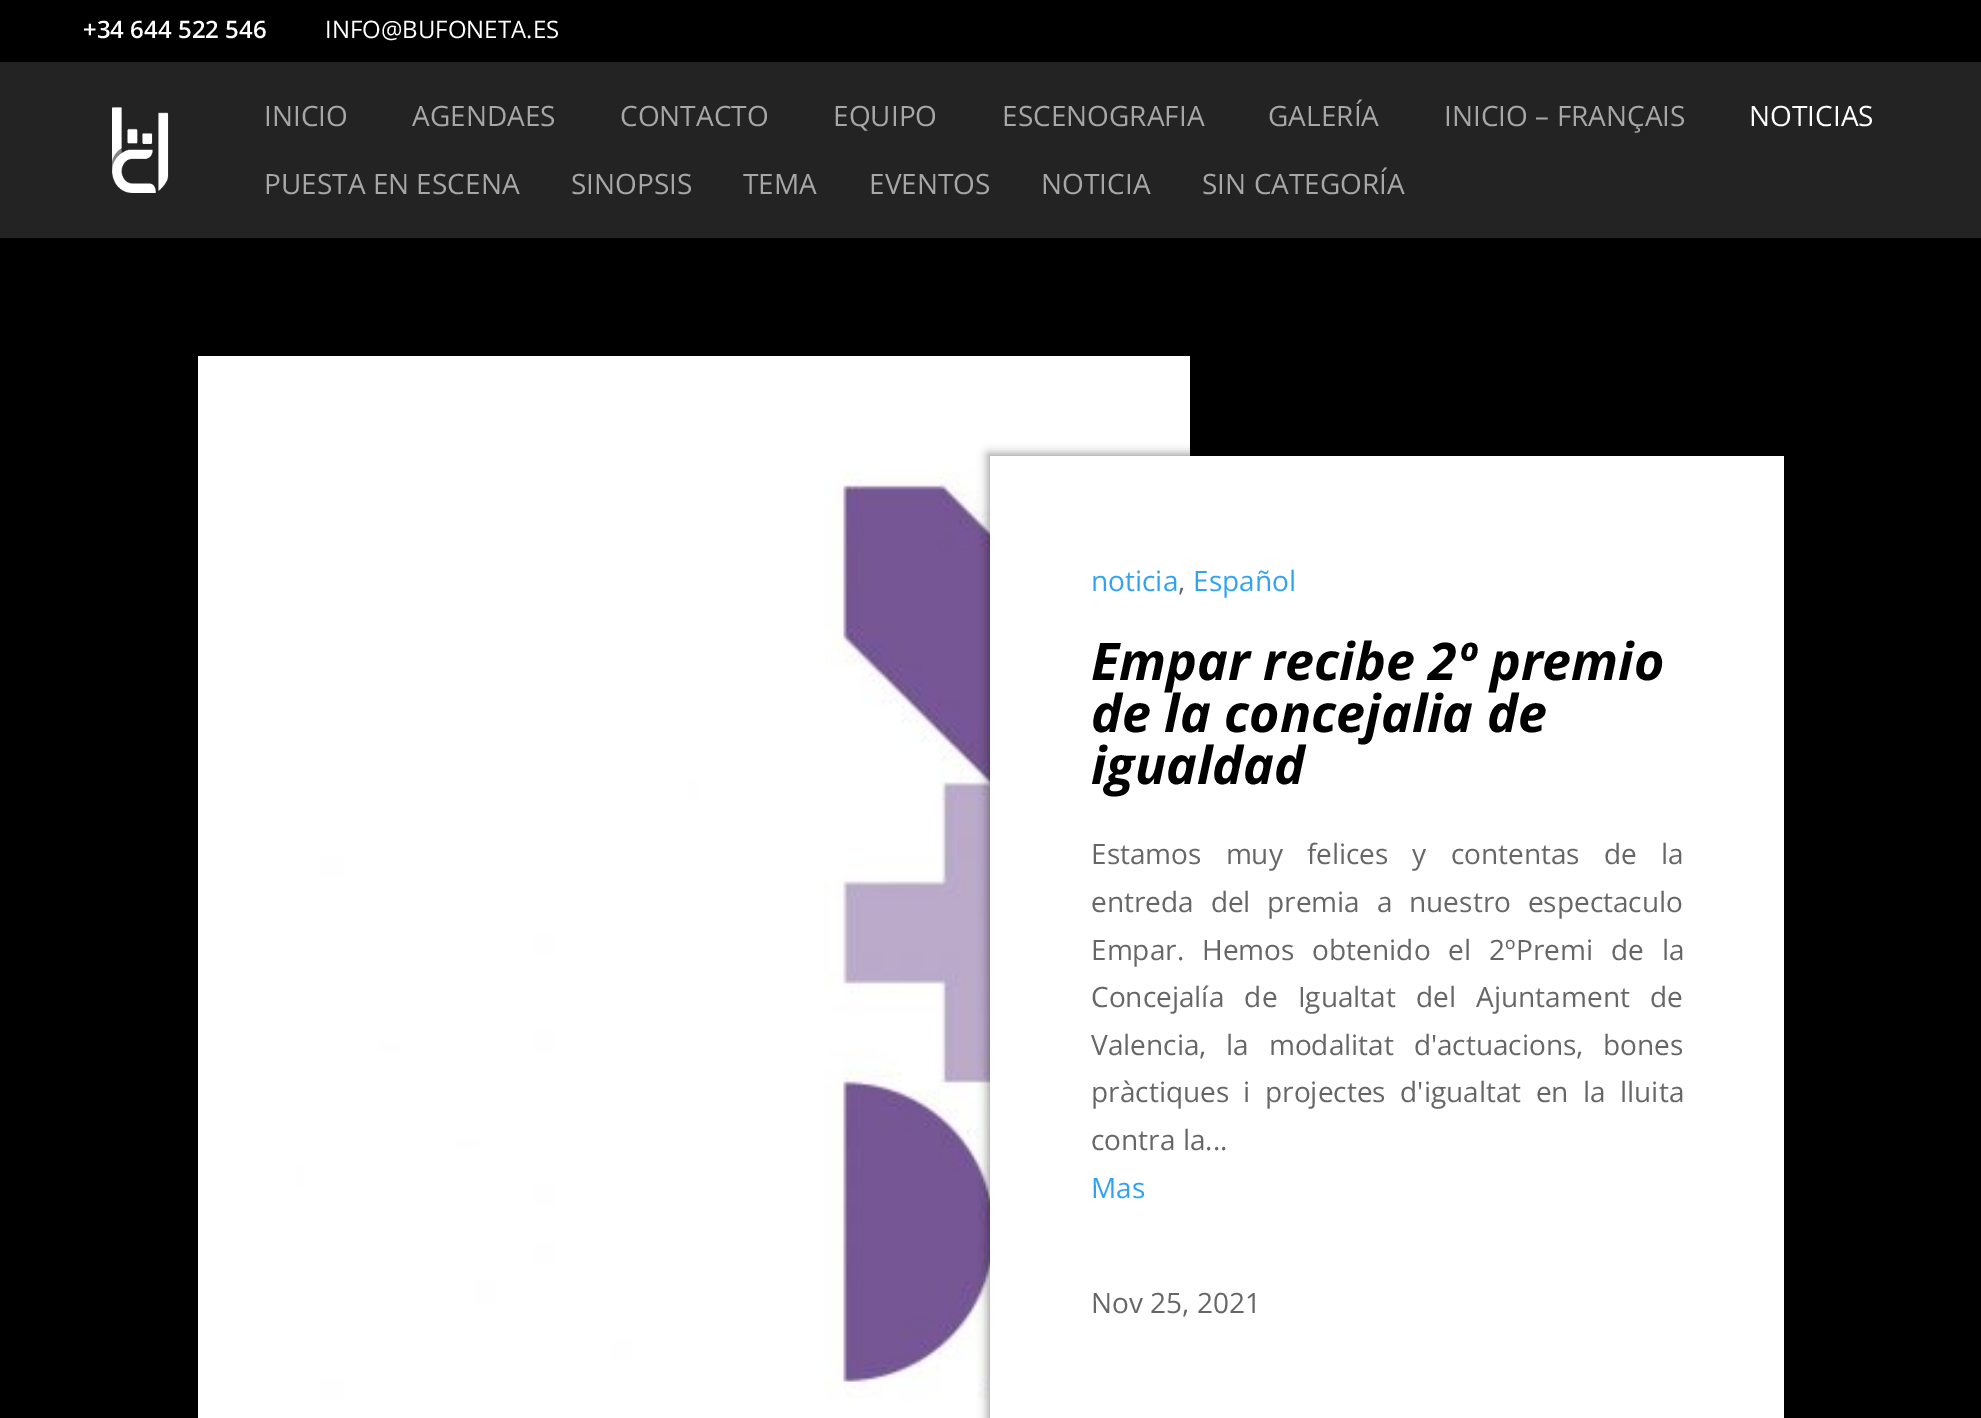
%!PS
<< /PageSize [1981 1418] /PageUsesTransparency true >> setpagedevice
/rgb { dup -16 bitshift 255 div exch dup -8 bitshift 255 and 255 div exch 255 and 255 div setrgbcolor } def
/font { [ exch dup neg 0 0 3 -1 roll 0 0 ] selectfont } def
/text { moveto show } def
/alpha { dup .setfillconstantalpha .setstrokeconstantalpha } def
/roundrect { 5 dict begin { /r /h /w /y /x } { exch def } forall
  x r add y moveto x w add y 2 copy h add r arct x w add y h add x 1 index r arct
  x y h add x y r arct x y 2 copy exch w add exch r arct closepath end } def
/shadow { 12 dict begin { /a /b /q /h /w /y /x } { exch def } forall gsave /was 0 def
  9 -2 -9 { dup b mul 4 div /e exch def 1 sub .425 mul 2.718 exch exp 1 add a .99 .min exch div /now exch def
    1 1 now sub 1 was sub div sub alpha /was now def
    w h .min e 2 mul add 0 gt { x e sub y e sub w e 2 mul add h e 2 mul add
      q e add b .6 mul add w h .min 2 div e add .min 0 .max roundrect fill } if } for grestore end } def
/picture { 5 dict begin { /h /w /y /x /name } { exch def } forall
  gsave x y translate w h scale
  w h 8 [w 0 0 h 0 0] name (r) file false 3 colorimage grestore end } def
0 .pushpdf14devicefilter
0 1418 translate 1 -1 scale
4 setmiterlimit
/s1 { /OpenSans-SemiBold 24 font 16#FFFFFF rgb } def
/s2 { /OpenSans-Regular 24 font 16#FFFFFF rgb } def
/s3 { /OpenSans-Regular 28 font 16#A7A7A7 rgb } def
/s4 { /OpenSans-Regular 28 font 16#FFFFFF rgb } def
/s5 { /OpenSans-Regular 28 font 16#2EA3F2 rgb } def
/s6 { /OpenSans-Regular 28 font 16#666666 rgb } def
/s7 { /OpenSans-BoldItalic 52 font 16#000000 rgb } def
16#000000 rgb
0 0 1981 1418 rectfill
s1
(+34 644 522 546) 83 38 text
s2
(INFO@BUFONETA.ES) 325 38 text
16#232323 rgb
0 62 1981 176 rectfill
(pic1.raw) 112 107 57 86 picture
s3
(INICIO) 264 126 text
(AGENDAES) 412 126 text
(CONTACTO) 620 126 text
(EQUIPO) 833 126 text
(ESCENOGRAFIA) 1002 126 text
(GALERÍA) 1268 126 text
(INICIO – FRANÇAIS) 1444 126 text
s4
(NOTICIAS) 1749 126 text
s3
(PUESTA EN ESCENA) 264 194 text
(SINOPSIS) 571 194 text
(TEMA) 743 194 text
(EVENTOS) 869 194 text
(NOTICIA) 1041 194 text
(SIN CATEGORÍA) 1202 194 text
(pic2.raw) 198 356 992 1062 picture
16#000000 rgb
988 454 798 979 0 5 0.4 shadow
16#FFFFFF rgb
990 456 794 962 rectfill
s5
(noticia) 1091 591 text
s6
(,) 1178 591 text
s5
(Español) 1193 591 text
s7
(Empar recibe 2º premio) 1091 680 text
(de la concejalia de) 1091 732 text
(igualdad) 1091 784 text
/OpenSans-Regular 28 font
16#666666 rgb
1091 864 moveto 16.75 0 32 (Estamos muy felices y contentas de la) widthshow
1091 912 moveto 9.5 0 32 (entreda del premia a nuestro espectaculo) widthshow
1091 960 moveto 10.75 0 32 (Empar. Hemos obtenido el 2ºPremi de la) widthshow
1091 1007 moveto 13 0 32 (Concejalía de Igualtat del Ajuntament de) widthshow
1091 1055 moveto 12.5 0 32 (Valencia, la modalitat d'actuacions, bones) widthshow
1091 1102 moveto 7.25 0 32 (pràctiques i projectes d'igualtat en la lluita) widthshow
(contra la...) 1091 1150 text
s5
(Mas) 1091 1198 text
s6
(Nov 25, 2021) 1091 1313 text
.poppdf14devicefilter showpage
